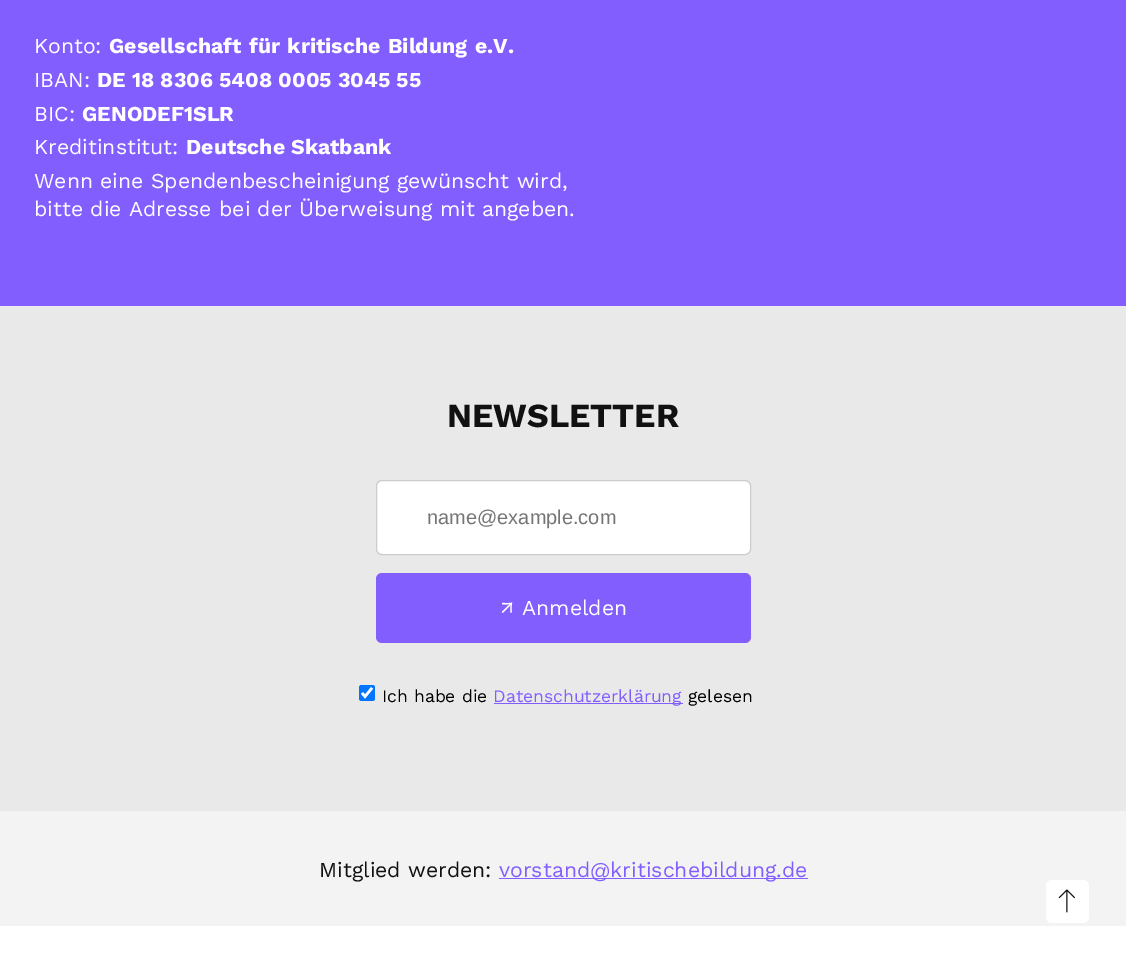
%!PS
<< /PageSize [1126 959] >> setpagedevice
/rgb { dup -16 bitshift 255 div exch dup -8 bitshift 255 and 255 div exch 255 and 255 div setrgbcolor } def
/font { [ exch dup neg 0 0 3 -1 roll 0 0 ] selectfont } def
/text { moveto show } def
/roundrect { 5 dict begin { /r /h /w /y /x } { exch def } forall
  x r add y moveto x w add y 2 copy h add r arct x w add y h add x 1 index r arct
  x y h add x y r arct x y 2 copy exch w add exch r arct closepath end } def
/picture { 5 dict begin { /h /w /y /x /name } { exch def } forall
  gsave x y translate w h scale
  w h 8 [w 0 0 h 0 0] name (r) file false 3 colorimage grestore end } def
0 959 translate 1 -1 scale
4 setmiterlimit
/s1 { /WorkSans-Regular 21.25 font 16#FFFFFF rgb } def
/s2 { /WorkSans-Bold 21.25 font 16#FFFFFF rgb } def
/s3 { /WorkSans-Bold 33.75 font 16#111111 rgb } def
/s4 { /LiberationSans-Regular 20 font 16#757575 rgb } def
/s5 { /WorkSans-Regular 17.5 font 16#000000 rgb } def
/s6 { /WorkSans-Regular 17.5 font 16#835EFF rgb } def
/s7 { /WorkSans-Regular 21.25 font 16#111111 rgb } def
/s8 { /WorkSans-Regular 21.25 font 16#835EFF rgb } def
16#FFFFFF rgb
0 0 1126 959 rectfill
16#835EFF rgb
0 0 1126 306 rectfill
s1
(Konto:) 34 53 text
/WorkSans-Bold 21.25 font
109 53 moveto 1.5 0 32 (Gesellschaft für kritische Bildung e.V.) widthshow
s1
(IBAN:) 34 87 text
s2
(DE 18 8306 5408 0005 3045 55) 97 87 text
s1
(BIC:) 34 121 text
s2
(GENODEF1SLR) 82 121 text
s1
(Kreditinstitut:) 34 154 text
s2
(Deutsche Skatbank) 186 154 text
s1
(Wenn eine Spendenbescheinigung gewünscht wird,) 34 188 text
(bitte die Adresse bei der Überweisung mit angeben.) 34 216 text
16#E9E9E9 rgb
0 306 1126 505 rectfill
s3
(NEWSLETTER) 447 427 text
16#FFFFFF rgb
376.5 480.5 374 74 5.5 roundrect gsave fill grestore
16#CCCCCC rgb
stroke
s4
(name@example.com) 427 524 text
16#835EFF rgb
376 573 375 70 6 roundrect fill
s1
(↗ Anmelden) 499 615 text
16#0075FF rgb
359 685 16 16 2.5 roundrect fill
16#FFFFFF rgb
2.6 setlinewidth
362 693 moveto 365 696.5 lineto 372 688 lineto stroke
s5
(Ich habe die) 382 702 text
16#835EFF rgb
494 703 189 1 rectfill
(Datenschutzerklärung) 493 702 text
s5
(gelesen) 688 702 text
16#F3F3F3 rgb
0 811 1126 115 rectfill
s7
(Mitglied werden:) 319 877 text
16#835EFF rgb
499 878 309 1 rectfill
(vorstand@kritischebildung.de) 499 877 text
16#FFFFFF rgb
1046 880 43 43 6 roundrect fill
(pic1.raw) 1058 889 17 24 picture
showpage
